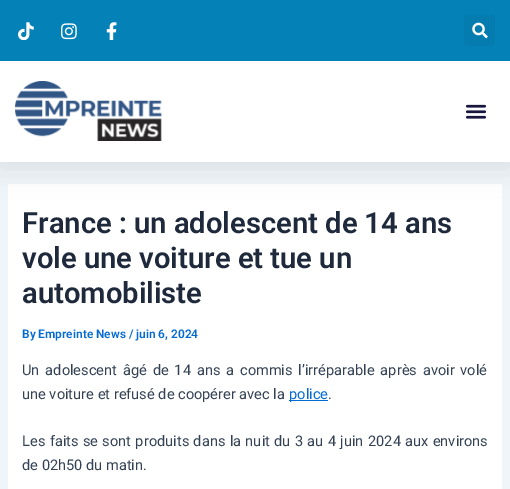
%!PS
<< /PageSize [510 489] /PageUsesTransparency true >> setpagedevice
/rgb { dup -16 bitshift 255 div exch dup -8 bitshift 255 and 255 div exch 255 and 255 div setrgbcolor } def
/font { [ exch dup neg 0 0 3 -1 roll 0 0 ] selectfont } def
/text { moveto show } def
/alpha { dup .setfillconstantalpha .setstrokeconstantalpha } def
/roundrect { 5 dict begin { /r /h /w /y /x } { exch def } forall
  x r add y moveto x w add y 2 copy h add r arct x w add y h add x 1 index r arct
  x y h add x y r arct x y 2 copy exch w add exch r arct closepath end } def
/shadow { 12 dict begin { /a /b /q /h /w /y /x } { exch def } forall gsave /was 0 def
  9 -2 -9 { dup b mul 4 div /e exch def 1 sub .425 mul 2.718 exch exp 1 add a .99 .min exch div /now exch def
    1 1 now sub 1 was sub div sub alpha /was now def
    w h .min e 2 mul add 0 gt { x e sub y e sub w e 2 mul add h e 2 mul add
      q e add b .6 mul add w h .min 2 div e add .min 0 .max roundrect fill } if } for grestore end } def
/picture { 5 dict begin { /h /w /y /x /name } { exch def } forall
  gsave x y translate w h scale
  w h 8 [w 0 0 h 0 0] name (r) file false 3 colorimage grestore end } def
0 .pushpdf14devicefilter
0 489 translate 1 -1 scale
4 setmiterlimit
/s1 { /Roboto-SemiBold 29.2 font 16#1E293B rgb } def
/s2 { /Roboto-SemiBold 11.9 font 16#046BD2 rgb } def
/s3 { /Roboto-Regular 14.6 font 16#334155 rgb } def
/s4 { /Roboto-Regular 14.6 font 16#046BD2 rgb } def
16#F0F5FA rgb
0 0 510 489 rectfill
16#FFFFFF rgb
8 184 494 305 rectfill
16#000000 rgb
0 5 510 162 0 15 0.1 shadow
16#0482B8 rgb
0 0 510 61 rectfill
(pic1.raw) 18 22 16 18 picture
(pic2.raw) 61 23 16 17 picture
(pic3.raw) 106 22 11 18 picture
16#047CAF rgb
464 15 31 31 3 roundrect fill
(pic4.raw) 472 22 16 17 picture
16#FFFFFF rgb
0 61 510 101 rectfill
(pic5.raw) 15 81 148 60 picture
(pic6.raw) 465 104 22 15 picture
s1
(France : un adolescent de 14 ans) 22 233 text
(vole une voiture et tue un) 22 268 text
(automobiliste) 22 303 text
s2
(By Empreinte News / juin 6, 2024) 22 338 text
/Roboto-Regular 14.6 font
16#334155 rgb
22 375 moveto 2.25 0 32 (Un adolescent âgé de 14 ans a commis l’irréparable après avoir volé) widthshow
(une voiture et refusé de coopérer avec la) 22 399 text
16#046BD2 rgb
289 400 39 1 rectfill
(police) 289 399 text
s3
(.) 328 399 text
22 446 moveto 0.75 0 32 (Les faits se sont produits dans la nuit du 3 au 4 juin 2024 aux environs) widthshow
(de 02h50 du matin.) 22 470 text
.poppdf14devicefilter showpage
